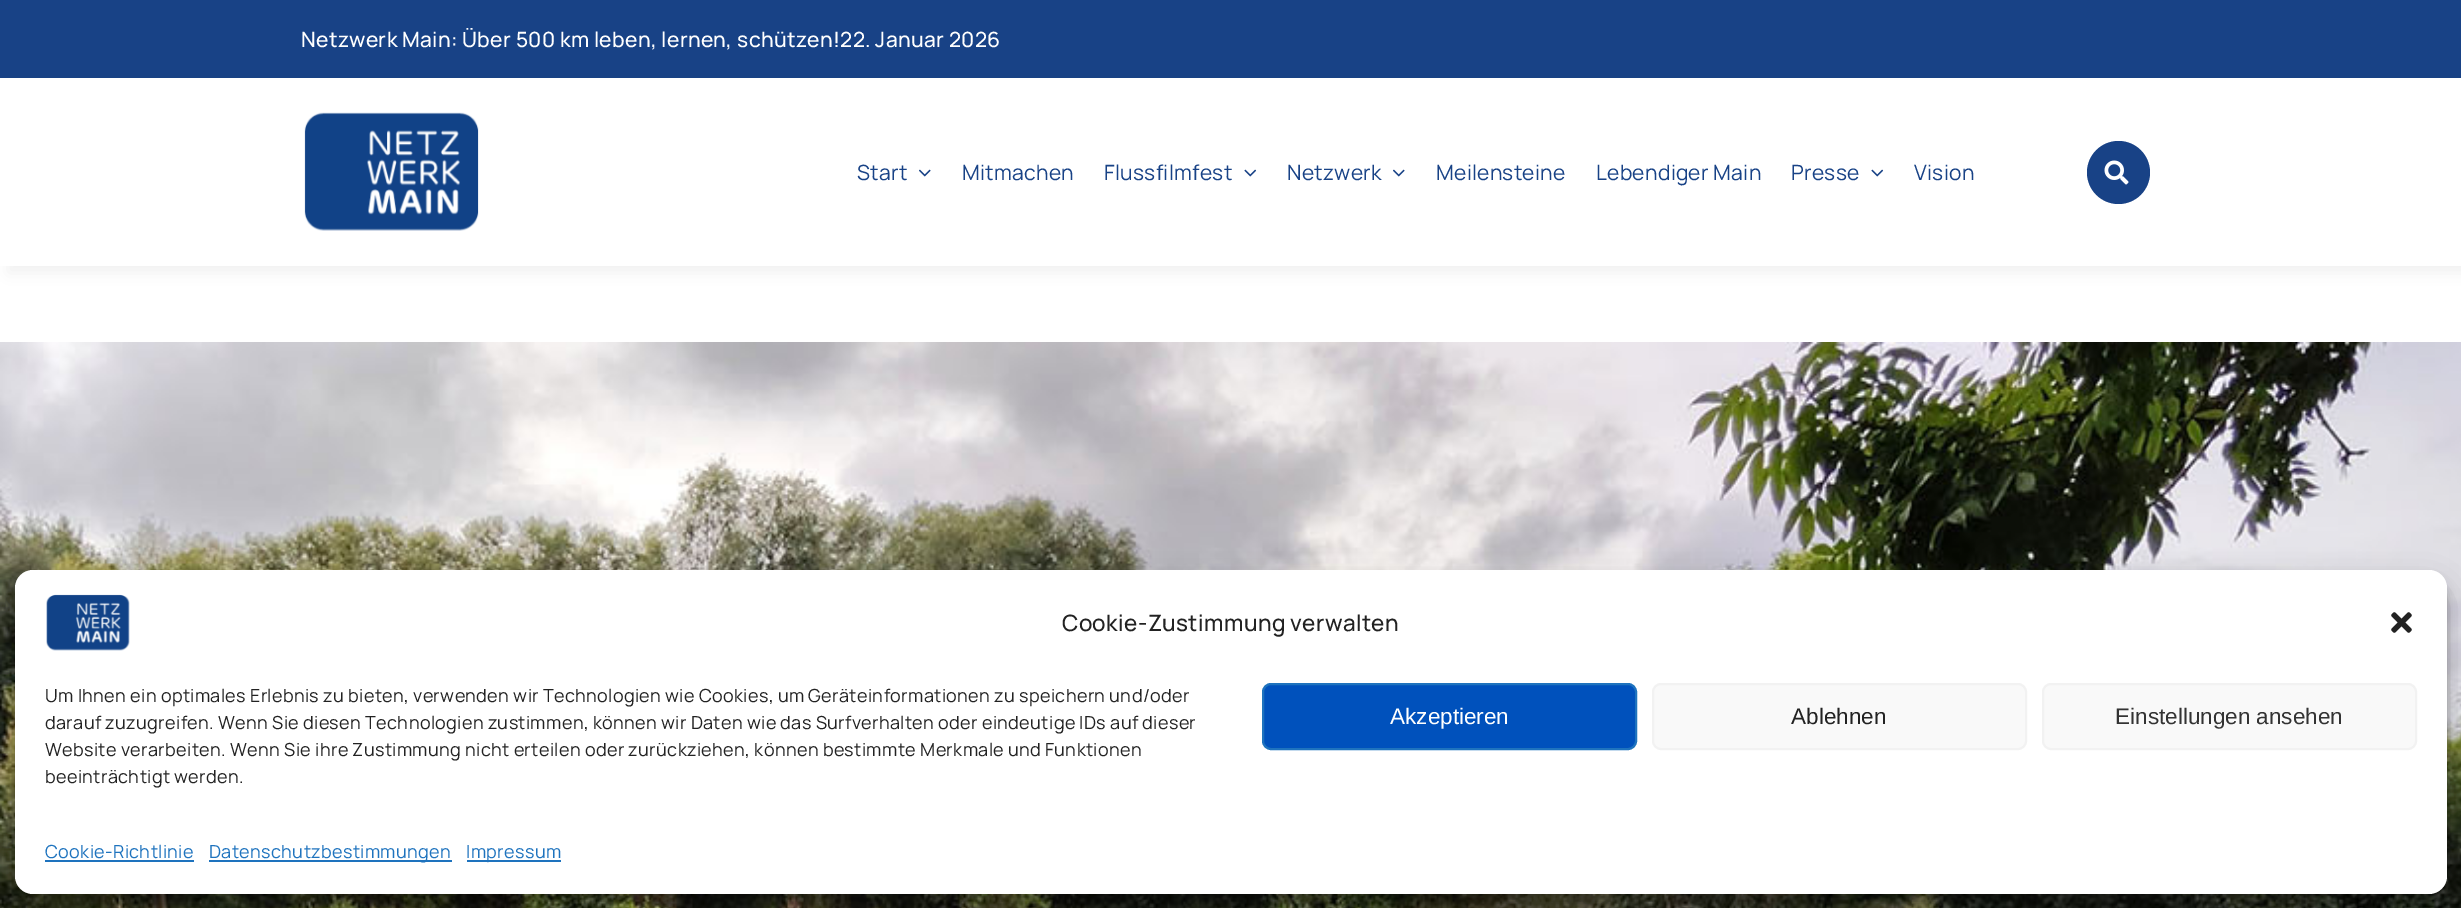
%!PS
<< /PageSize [2461 908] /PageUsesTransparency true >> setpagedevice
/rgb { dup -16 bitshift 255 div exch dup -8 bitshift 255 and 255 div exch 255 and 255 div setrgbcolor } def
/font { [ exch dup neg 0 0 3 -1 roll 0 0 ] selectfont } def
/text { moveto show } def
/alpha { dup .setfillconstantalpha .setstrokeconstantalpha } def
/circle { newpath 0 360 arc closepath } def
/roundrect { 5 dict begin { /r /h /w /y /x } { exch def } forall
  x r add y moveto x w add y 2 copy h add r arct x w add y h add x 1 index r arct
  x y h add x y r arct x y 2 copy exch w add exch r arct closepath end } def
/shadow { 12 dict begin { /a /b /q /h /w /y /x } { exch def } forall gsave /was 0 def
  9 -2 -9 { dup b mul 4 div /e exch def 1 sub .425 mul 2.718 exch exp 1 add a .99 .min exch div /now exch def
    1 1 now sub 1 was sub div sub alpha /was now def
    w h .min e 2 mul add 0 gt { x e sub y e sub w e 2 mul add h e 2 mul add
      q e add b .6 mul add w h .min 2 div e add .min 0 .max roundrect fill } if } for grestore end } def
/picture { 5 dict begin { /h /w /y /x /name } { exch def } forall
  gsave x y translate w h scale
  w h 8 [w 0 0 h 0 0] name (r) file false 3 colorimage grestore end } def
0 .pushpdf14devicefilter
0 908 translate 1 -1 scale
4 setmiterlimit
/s1 { /LiberationSans-Regular 22.5 font 16#FFFFFF rgb } def
/s2 { /LiberationSans-Regular 22.5 font 16#222222 rgb } def
/s3 { /LiberationSans-Regular 22.5 font 16#333333 rgb } def
16#FFFFFF rgb
0 0 2461 908 rectfill
16#184286 rgb
0 0 2461 78 rectfill
/Manrope-Medium 21 font
16#FFFFFF rgb
301 47 moveto 0.32 0 (Netzwerk Main: Über 500 km leben, lernen, schützen!22. Januar 2026) ashow
gsave
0 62 moveto 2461 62 lineto 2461 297 lineto 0 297 lineto closepath 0 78 moveto 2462 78 lineto 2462 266 lineto 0 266 lineto closepath eoclip newpath
16#020303 rgb
8 86 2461 187 0 7.5 0.05 shadow
grestore
(pic1.raw) 304 112 175 119 picture
/Manrope-Regular 21 font
16#184286 rgb
857 180 moveto 0.32 0 (Start) ashow
(pic2.raw) 919 169 12 8 picture
962 180 moveto 0.32 0 (Mitmachen) ashow
1104 180 moveto 0.32 0 (Flussfilmfest) ashow
(pic3.raw) 1244 169 13 8 picture
1287 180 moveto 0.32 0 (Netzwerk) ashow
(pic2.raw) 1393 169 12 8 picture
1436 180 moveto 0.32 0 (Meilensteine) ashow
1596 180 moveto 0.32 0 (Lebendiger Main) ashow
1791 180 moveto 0.32 0 (Presse) ashow
(pic3.raw) 1871 169 13 8 picture
1914 180 moveto 0.32 0 (Vision) ashow
2118.5 172.5 31.5 circle fill
(pic4.raw) 2104 160 25 25 picture
(pic5.raw) 0 342 2461 566 picture
16#000000 rgb
15 579 2432 324 18 4.5 0.23 shadow
15 585 2432 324 18 15 0.19 shadow
16#FFFFFF rgb
15 570 2432 324 18 roundrect fill
(pic6.raw) 46 594 84 57 picture
/Manrope-Medium 22.5 font
16#222222 rgb
1062 631 moveto 0.36 0 (Cookie-Zustimmung verwalten) ashow
(pic7.raw) 2391 612 21 21 picture
/Manrope-Regular 18 font
45 702 moveto 0.36 0 (Um Ihnen ein optimales Erlebnis zu bieten, verwenden wir Technologien wie Cookies, um Geräteinformationen zu speichern und/oder) ashow
45 729 moveto 0.36 0 (darauf zuzugreifen. Wenn Sie diesen Technologien zustimmen, können wir Daten wie das Surfverhalten oder eindeutige IDs auf dieser) ashow
45 756 moveto 0.36 0 (Website verarbeiten. Wenn Sie ihre Zustimmung nicht erteilen oder zurückziehen, können bestimmte Merkmale und Funktionen) ashow
45 783 moveto 0.36 0 (beeinträchtigt werden.) ashow
16#0051BC rgb
1263 684 373 65 8 roundrect gsave fill grestore
16#1E73BE rgb
2 setlinewidth
stroke
s1
(Akzeptieren) 1390 724 text
16#F9F9F9 rgb
1653 684 373 65 8 roundrect gsave fill grestore
16#F2F2F2 rgb
stroke
s2
(Ablehnen) 1791 724 text
16#F9F9F9 rgb
2043 684 373 65 8 roundrect gsave fill grestore
16#F2F2F2 rgb
stroke
s3
(Einstellungen ansehen) 2115 724 text
/Manrope-Regular 18 font
16#1E73BE rgb
45 858 moveto 0.36 0 (Cookie-Richtlinie) ashow
45 860 149 2 rectfill
209 860 243 2 rectfill
209 858 moveto 0.36 0 (Datenschutzbestimmungen) ashow
467 860 94 2 rectfill
466 858 moveto 0.36 0 (Impressum) ashow
.poppdf14devicefilter showpage
